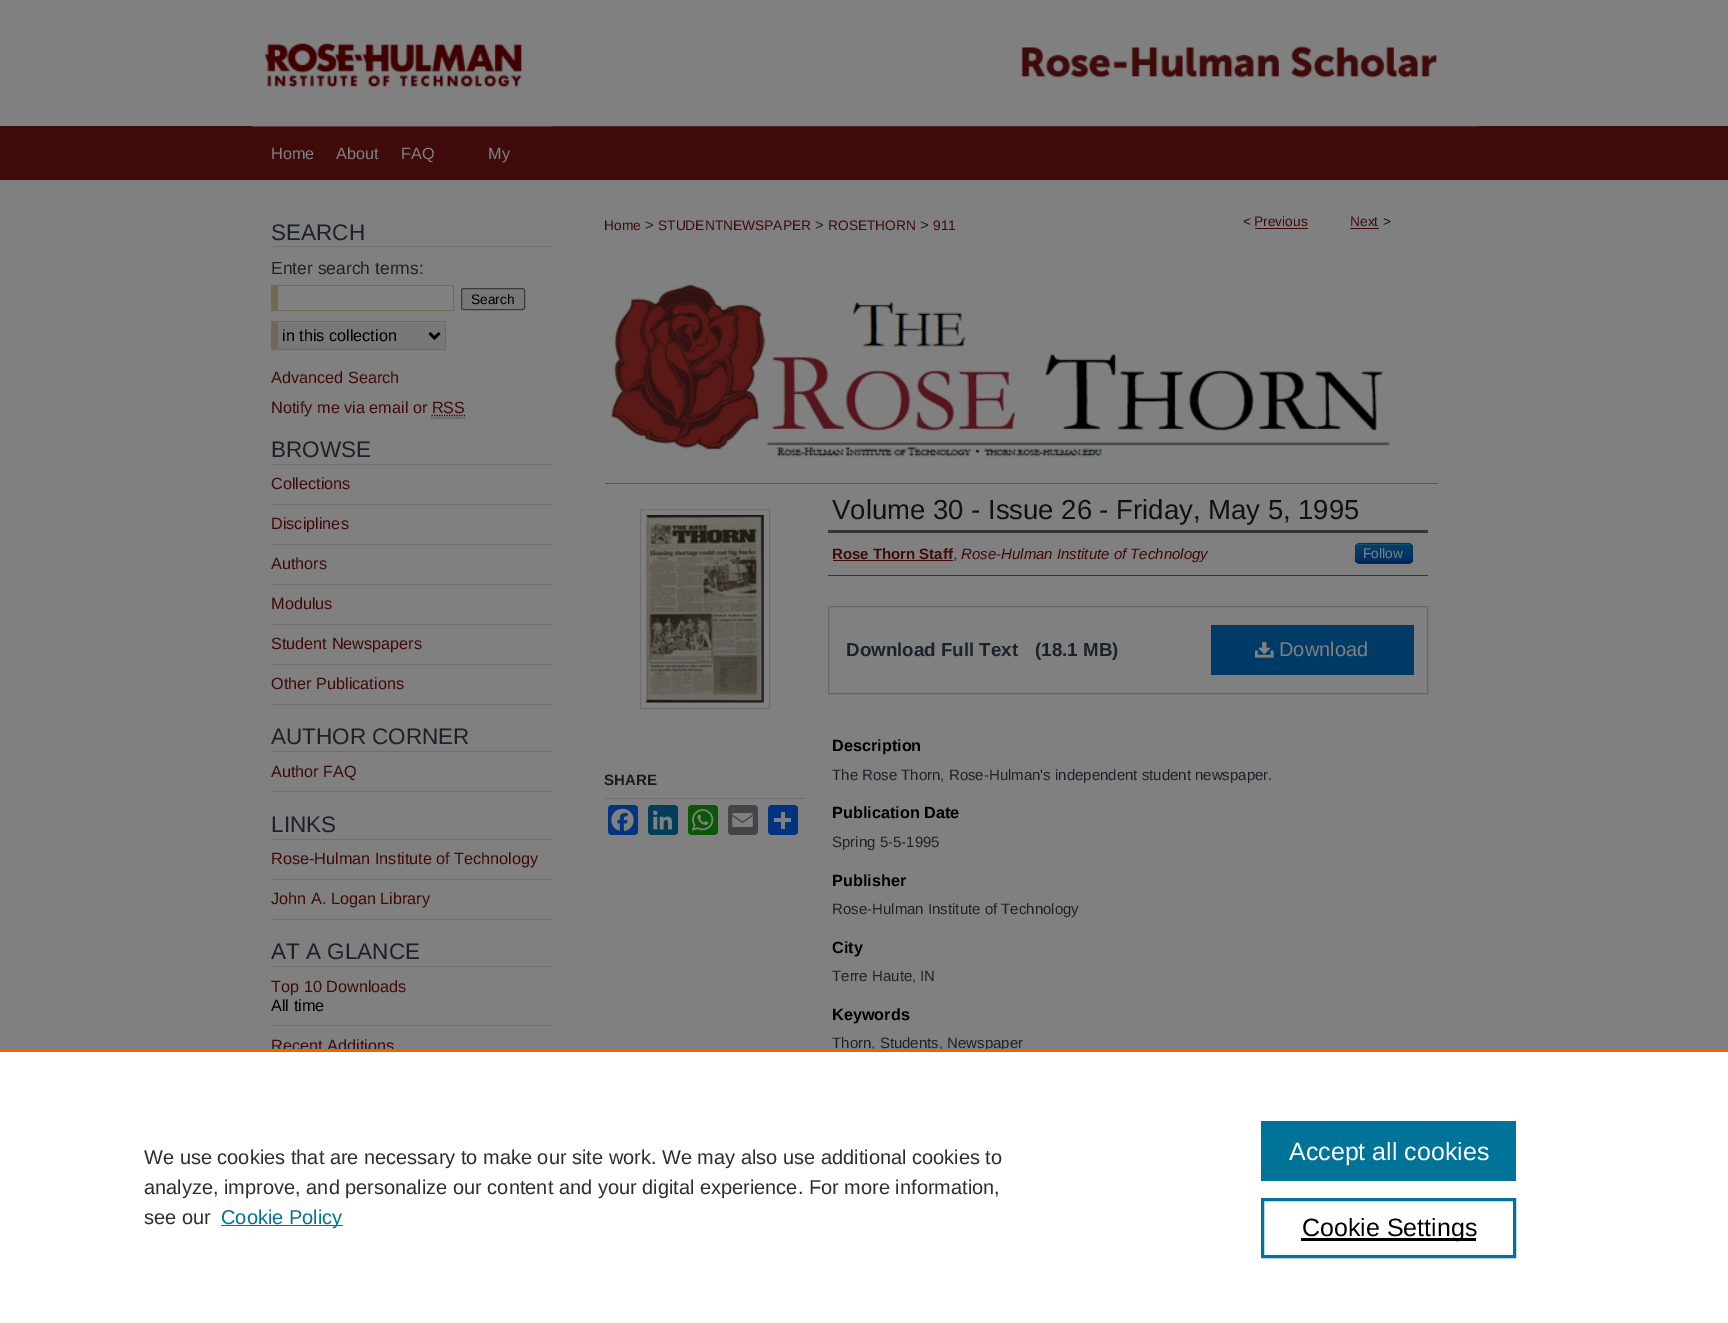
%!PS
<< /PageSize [1728 1323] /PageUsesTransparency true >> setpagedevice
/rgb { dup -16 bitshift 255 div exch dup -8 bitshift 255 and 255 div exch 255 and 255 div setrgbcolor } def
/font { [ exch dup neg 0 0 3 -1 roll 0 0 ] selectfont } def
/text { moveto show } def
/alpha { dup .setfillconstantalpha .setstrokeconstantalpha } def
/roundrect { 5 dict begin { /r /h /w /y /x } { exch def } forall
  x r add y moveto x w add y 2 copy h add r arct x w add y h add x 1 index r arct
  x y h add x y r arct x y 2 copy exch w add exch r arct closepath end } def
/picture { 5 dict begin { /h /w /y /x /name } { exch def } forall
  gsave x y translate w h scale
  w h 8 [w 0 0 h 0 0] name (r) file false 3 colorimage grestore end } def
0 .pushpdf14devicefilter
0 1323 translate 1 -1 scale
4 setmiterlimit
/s1 { /LiberationSans-Regular 16.25 font 16#808080 rgb } def
/s2 { /LiberationSans-Regular 22.5 font 16#1B2229 rgb } def
/s3 { /LiberationSans-Regular 17.5 font 16#1B2229 rgb } def
/s4 { /LiberationSans-Regular 13.75 font 16#000000 rgb } def
/s5 { /LiberationSans-Regular 16.25 font 16#000000 rgb } def
/s6 { /LiberationSans-Regular 16.25 font 16#400A0B rgb } def
/s7 { /LiberationSans-Regular 13.75 font 16#400A0B rgb } def
/s8 { /LiberationSans-Regular 15 font 16#1B2229 rgb } def
/s9 { /LiberationSans-Regular 13.75 font 16#111111 rgb } def
/s10 { /LiberationSans-Bold 15 font 16#1A1A1A rgb } def
/s11 { /LiberationSans-Regular 27.5 font 16#111111 rgb } def
/s12 { /LiberationSans-Bold 15 font 16#400A0B rgb } def
/s13 { /LiberationSans-Regular 15 font 16#400A0B rgb } def
/s14 { /LiberationSans-Italic 15 font 16#400A0B rgb } def
/s15 { /LiberationSans-Regular 13.75 font 16#808080 rgb } def
/s16 { /LiberationSans-Bold 18.75 font 16#1B2229 rgb } def
/s17 { /LiberationSans-Regular 20 font 16#808080 rgb } def
/s18 { /LiberationSans-Bold 16.25 font 16#000000 rgb } def
/s19 { /LiberationSans-Regular 20 font 16#2E2E2E rgb } def
/s20 { /LiberationSans-Regular 20 font 16#007398 rgb } def
/s21 { /LiberationSans-Regular 25 font 16#FFFFFF rgb } def
/s22 { /LiberationSans-Regular 25 font 16#000000 rgb } def
16#808080 rgb
0 0 1728 1323 rectfill
16#400A0B rgb
0 126 1728 54 rectfill
(pic1.raw) 252 43 1226 84 picture
(pic2.raw) 252 126 301 1 picture
s1
(Home) 271 159 text
(About) 336 159 text
(FAQ) 401 159 text
(My) 488 159 text
16#6F6F6F rgb
271 246 282 1 rectfill
s2
(SEARCH) 271 240 text
s3
(Enter search terms:) 271 274 text
16#706954 rgb
271 285 183 1 rectfill
453 285 1 26 rectfill
271 310 183 1 rectfill
271 285 7 26 rectfill
16#787878 rgb
461.5 288.5 63 21 2 roundrect gsave fill grestore
16#3B3B3B rgb
stroke
s4
(Search) 471 304 text
16#787878 rgb
278 323 167 26 rectfill
16#706954 rgb
271 321 175 1 rectfill
445 321 1 29 rectfill
271 349 175 1 rectfill
271 321 7 29 rectfill
16#000000 rgb
2.5 setlinewidth
429.5 333 moveto 434.5 338 lineto 439.5 333 lineto stroke
s5
(in this collection) 282 341 text
s6
(Advanced Search) 271 383 text
(Notify me via email or RSS) 271 413 text
1.2 setlinewidth
[1.25 1.25] 0 setdash
431.5 415.5 moveto 465 415.5 lineto stroke
16#4D4D4D rgb
431 418 moveto 465 418 lineto stroke
16#6F6F6F rgb
271 464 282 1 rectfill
s2
(BROWSE) 271 457 text
16#6F6F6F rgb
271 504 282 1 rectfill
s6
(Collections) 271 489 text
16#6F6F6F rgb
271 544 282 1 rectfill
s6
(Disciplines) 271 529 text
16#6F6F6F rgb
271 584 282 1 rectfill
s6
(Authors) 271 569 text
16#6F6F6F rgb
271 624 282 1 rectfill
s6
(Modulus) 271 609 text
16#6F6F6F rgb
271 664 282 1 rectfill
s6
(Student Newspapers) 271 649 text
16#6F6F6F rgb
271 704 282 1 rectfill
s6
(Other Publications) 271 689 text
16#6F6F6F rgb
271 751 282 1 rectfill
s2
(AUTHOR CORNER) 271 744 text
16#6F6F6F rgb
271 791 282 1 rectfill
s6
(Author FAQ) 271 777 text
16#6F6F6F rgb
271 839 282 1 rectfill
s2
(LINKS) 271 832 text
16#6F6F6F rgb
271 879 282 1 rectfill
s6
(Rose-Hulman Institute of Technology) 271 864 text
16#6F6F6F rgb
271 919 282 1 rectfill
s6
(John A. Logan Library) 271 904 text
16#6F6F6F rgb
271 966 282 1 rectfill
s2
(AT A GLANCE) 271 959 text
16#6F6F6F rgb
271 1025 282 1 rectfill
s6
(Top 10 Downloads) 271 992 text
s5
(All time) 271 1011 text
s6
(Recent Additions) 271 1051 text
s7
(Home) 604 230 text
s8
(>) 645 230 text
s7
(STUDENTNEWSPAPER) 658 230 text
s8
(>) 815 230 text
s7
(ROSETHORN) 828 230 text
s8
(>) 920 230 text
s7
(911) 933 230 text
s9
(<) 1243 226 text
s7
(Previous) 1254 226 text
1255 228 53 1 rectfill
(Next) 1350 226 text
1350 228 29 1 rectfill
s9
(>) 1383 226 text
(pic3.raw) 611 284 779 173 picture
16#6F6F6F rgb
1 setlinewidth
[] 0 setdash
640.5 509.5 129 199 rectstroke
(pic4.raw) 646 515 118 188 picture
605 798 200 1 rectfill
s10
(SHARE) 604 785 text
16#043380 rgb
608 805 30 30 4 roundrect fill
(pic5.raw) 611 808 23 24 picture
16#003E5B rgb
648 805 30 30 4 roundrect fill
(pic6.raw) 653 810 19 20 picture
16#095805 rgb
688 805 30 30 4 roundrect fill
(pic7.raw) 691 809 23 22 picture
16#444548 rgb
728 805 30 30 4 roundrect fill
(pic8.raw) 732 813 21 14 picture
16#013380 rgb
768 805 30 30 4 roundrect fill
16#808080 rgb
781 812 4 17 rectfill
774 818 17 4 rectfill
16#555555 rgb
605 483 833 1 rectfill
s11
(Volume 30 - Issue 26 - Friday, May 5, 1995) 832 519 text
16#333333 rgb
828 530 600 3 rectfill
828 575 600 1 rectfill
s12
(Rose Thorn Staff) 832 559 text
833 560 120 1 rectfill
s13
(,) 953 559 text
s14
(Rose-Hulman Institute of Technology) 961 559 text
16#003A66 rgb
1355 543 58 21 5 roundrect fill
gsave
1355 543 58 21 5 roundrect clip newpath
gsave 1355 544 moveto 1413 544 lineto 1413 563 lineto 1355 563 lineto closepath clip newpath
<< /ShadingType 2 /ColorSpace /DeviceRGB /Coords [1384 544 1384 563] /Extend [true true] /Function << /FunctionType 2 /Domain [0 1] /C0 [0 0.267 0.4] /C1 [0 0.169 0.4] /N 1 >> >> shfill grestore
grestore
0.2 alpha
16#808080 rgb
1360 545 moveto 1402 545 lineto 1408 544 1411 544 1411 551 curveto 1411 560 lineto 1411 552 lineto 1411 542 1409 544 1399 544 curveto 1368 544 lineto 1358 544 1356 542 1356 552 curveto 1356 561 lineto 1356 557 1354 545 1360 545 curveto closepath fill
0.25 alpha
16#000000 rgb
1.2 setlinewidth
1410.5 562 moveto 1410 562.5 1408.5 563 1407.5 563 curveto 1360 563 lineto 1359 563 1357.5 562.5 1357 562 curveto stroke
0.1 alpha
1357 562 moveto 1354.5 559.5 1355.5 556 1355.5 553 curveto 1355.5 542 1356.5 543 1368 543 curveto 1399.5 543 lineto 1411 543 1412 542 1412 553 curveto 1412 556 1413 559.5 1410.5 562 curveto stroke
1 alpha
s15
(Follow) 1363 558 text
16#666666 rgb
1 setlinewidth
828.5 606.5 599 87 rectstroke
s16
(Download Full Text) 846 656 text
(\(18.1 MB\)) 1035 656 text
16#003A66 rgb
1211 625 203 50 rectfill
(pic9.raw) 1255 641 19 17 picture
s17
(Download) 1279 656 text
s18
(Description) 832 751 text
s8
(The Rose Thorn, Rose-Hulman's independent student newspaper.) 832 780 text
s18
(Publication Date) 832 818 text
s8
(Spring 5-5-1995) 832 847 text
s18
(Publisher) 832 886 text
s8
(Rose-Hulman Institute of Technology) 832 914 text
s18
(City) 832 953 text
s8
(Terre Haute, IN) 832 981 text
s18
(Keywords) 832 1020 text
s8
(Thorn, Students, Newspaper) 832 1048 text
16#FFFFFF rgb
0 1052 1728 271 rectfill
16#EB6500 rgb
0 1049 1728 3 rectfill
s19
(We use cookies that are necessary to make our site work. We may also use additional cookies to) 144 1164 text
(analyze, improve, and personalize our content and your digital experience. For more information,) 144 1194 text
(see our) 144 1224 text
16#007398 rgb
221 1225 122 1 rectfill
(Cookie Policy) 221 1224 text
1261 1121 255 60 rectfill
s21
(Accept all cookies) 1289 1160 text
16#007398 rgb
3 setlinewidth
1262.5 1199.5 252 57 rectstroke
16#000000 rgb
1301 1238 175 3 rectfill
(Cookie Settings) 1302 1236 text
.poppdf14devicefilter showpage
